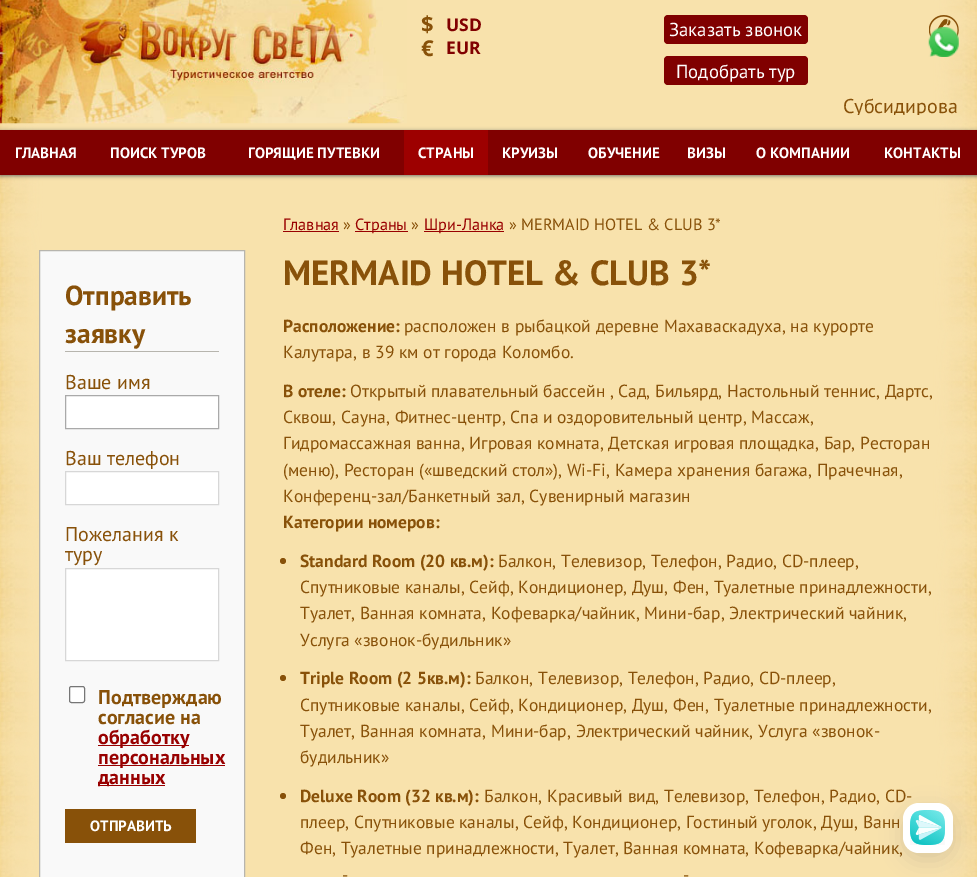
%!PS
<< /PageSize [977 877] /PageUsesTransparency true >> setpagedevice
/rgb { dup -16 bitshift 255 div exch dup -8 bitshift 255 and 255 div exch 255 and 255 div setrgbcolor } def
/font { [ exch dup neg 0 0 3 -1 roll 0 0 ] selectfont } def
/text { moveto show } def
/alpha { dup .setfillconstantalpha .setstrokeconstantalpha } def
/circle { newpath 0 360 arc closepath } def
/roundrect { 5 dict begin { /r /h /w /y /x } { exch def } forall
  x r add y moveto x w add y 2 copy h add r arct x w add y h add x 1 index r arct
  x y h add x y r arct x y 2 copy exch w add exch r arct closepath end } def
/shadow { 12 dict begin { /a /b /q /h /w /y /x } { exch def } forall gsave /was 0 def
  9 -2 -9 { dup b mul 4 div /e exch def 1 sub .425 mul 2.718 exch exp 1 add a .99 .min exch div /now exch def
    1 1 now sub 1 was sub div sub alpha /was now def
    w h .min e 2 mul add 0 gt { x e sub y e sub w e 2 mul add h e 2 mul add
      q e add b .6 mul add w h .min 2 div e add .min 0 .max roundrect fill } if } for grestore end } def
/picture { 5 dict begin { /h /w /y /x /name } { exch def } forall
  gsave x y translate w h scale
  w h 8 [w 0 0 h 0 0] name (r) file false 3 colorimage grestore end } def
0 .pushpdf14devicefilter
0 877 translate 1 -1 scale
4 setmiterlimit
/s1 { /OpenSans-Bold 22 font 16#885109 rgb } def
/s2 { /OpenSans-Bold 17.5 font 16#800000 rgb } def
/s3 { /PTSans-Regular 18.75 font 16#FFFFFF rgb } def
/s4 { /PTSans-Regular 20 font 16#885109 rgb } def
/s5 { /PTSans-Bold 15 font 16#FFFFFF rgb } def
/s6 { /PTSans-Bold 27.5 font 16#885109 rgb } def
/s7 { /PTSans-Bold 20 font 16#885109 rgb } def
/s8 { /PTSans-Bold 20 font 16#980000 rgb } def
/s9 { /PTSans-Regular 16.25 font 16#980000 rgb } def
/s10 { /PTSans-Regular 16.25 font 16#885109 rgb } def
/s11 { /PTSans-Bold 35 font 16#885109 rgb } def
/s12 { /PTSans-Bold 17.5 font 16#885109 rgb } def
/s13 { /PTSans-Regular 17.5 font 16#885109 rgb } def
16#F8E2AC rgb
0 0 977 877 rectfill
(pic1.raw) 0 0 977 877 picture
(pic2.raw) 0 0 407 124 picture
s1
($) 421 32 text
s2
(USD) 446 31 text
s1
(€) 421 56 text
s2
(EUR) 446 54 text
664 15 144 29 4 roundrect fill
s3
(Заказать звонок) 669 36 text
16#800000 rgb
664 56 144 29 4 roundrect fill
s3
(Подобрать тур) 676 78 text
(pic3.raw) 929 15 30 25 picture
(pic4.raw) 928 27 31 30 picture
gsave
343 95 616 20 rectclip
s4
(Субсидирова) 843 113 text
grestore
16#646464 rgb
0 131 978 45 0 2 0.9 shadow
16#800000 rgb
0 130 977 45 rectfill
s5
(ГЛАВНАЯ) 15 158 text
(ПОИСК ТУРОВ) 110 158 text
(ГОРЯЩИЕ ПУТЕВКИ) 248 158 text
16#9D0000 rgb
404 130 84 45 rectfill
s5
(СТРАНЫ) 418 158 text
(КРУИЗЫ) 502 158 text
(ОБУЧЕНИЕ) 588 158 text
(ВИЗЫ) 687 158 text
(О КОМПАНИИ) 756 158 text
(КОНТАКТЫ) 884 158 text
16#F9F9F9 rgb
39.5 250.5 moveto 244.5 250.5 lineto 244.5 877.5 lineto 39.5 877.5 lineto closepath gsave fill grestore
16#B7B5AE rgb
stroke
65 351 154 1 rectfill
s6
(Отправить) 65 305 text
(заявку) 65 343 text
s4
(Ваше имя) 65 389 text
16#FFFFFF rgb
65.5 395.5 moveto 218.5 395.5 lineto 218.5 428.5 lineto 65.5 428.5 lineto closepath gsave fill grestore
16#A9A9A9 rgb
stroke
s4
(Ваш телефон) 65 465 text
16#FFFFFF rgb
65.5 471.5 moveto 218.5 471.5 lineto 218.5 504.5 lineto 65.5 504.5 lineto closepath gsave fill grestore
16#D7D7D7 rgb
stroke
s4
(Пожелания к) 65 541 text
(туру) 65 561 text
16#FFFFFF rgb
65.5 568.5 moveto 218.5 568.5 lineto 218.5 660.5 lineto 65.5 660.5 lineto closepath gsave fill grestore
16#D7D7D7 rgb
stroke
16#FFFFFF rgb
69.5 686.5 15 16 2 roundrect gsave fill grestore
16#767676 rgb
stroke
s7
(Подтверждаю) 98 704 text
(согласие на) 98 724 text
16#980000 rgb
98 745 91 1 rectfill
(обработку) 98 744 text
98 765 127 1 rectfill
(персональных) 98 764 text
98 785 67 1 rectfill
(данных) 98 784 text
16#885109 rgb
65 809 131 34 rectfill
s5
(ОТПРАВИТЬ) 90 831 text
s9
(Главная) 283 230 text
283 231 56 1 rectfill
s10
(») 343 230 text
16#980000 rgb
355 231 53 1 rectfill
(Страны) 355 230 text
s10
(») 411 230 text
16#980000 rgb
424 231 80 1 rectfill
(Шри-Ланка) 424 230 text
s10
(» MERMAID HOTEL & CLUB 3*) 509 230 text
s11
(MERMAID HOTEL & CLUB 3*) 283 285 text
s12
(Расположение:) 283 332 text
s13
(расположен в рыбацкой деревне Махаваскадуха, на курорте) 404 332 text
(Калутара, в 39 км от города Коломбо.) 283 358 text
s12
(В отеле:) 283 397 text
s13
(Открытый плавательный бассейн , Сад, Бильярд, Настольный теннис, Дартс,) 350 397 text
(Сквош, Сауна, Фитнес-центр, Спа и оздоровительный центр, Массаж,) 283 423 text
(Гидромассажная ванна, Игровая комната, Детская игровая площадка, Бар, Ресторан) 283 449 text
(\(меню\), Ресторан \(«шведский стол»\), Wi-Fi, Камера хранения багажа, Прачечная,) 283 476 text
(Конференц-зал/Банкетный зал, Сувенирный магазин) 283 502 text
s12
(Категории номеров:) 283 528 text
283 561 3 circle fill
(Standard Room \(20 кв.м\):) 300 567 text
s13
(Балкон, Телевизор, Телефон, Радио, CD-плеер,) 498 567 text
(Спутниковые каналы, Сейф, Кондиционер, Душ, Фен, Туалетные принадлежности,) 300 593 text
(Туалет, Ванная комната, Кофеварка/чайник, Мини-бар, Электрический чайник,) 300 619 text
(Услуга «звонок-будильник») 300 646 text
283 678 3 circle fill
s12
(Triple Room \(2 5кв.м\):) 300 684 text
s13
(Балкон, Телевизор, Телефон, Радио, CD-плеер,) 475 684 text
(Спутниковые каналы, Сейф, Кондиционер, Душ, Фен, Туалетные принадлежности,) 300 711 text
(Туалет, Ванная комната, Мини-бар, Электрический чайник, Услуга «звонок-) 300 737 text
(будильник») 300 763 text
283 796 3 circle fill
s12
(Deluxe Room \(32 кв.м\):) 300 802 text
s13
(Балкон, Красивый вид, Телевизор, Телефон, Радио, CD-) 484 802 text
(плеер, Спутниковые каналы, Сейф, Кондиционер, Гостиный уголок, Душ, Ванн) 300 828 text
(Фен, Туалетные принадлежности, Туалет, Ванная комната, Кофеварка/чайник,) 300 854 text
(-) 342 881 text
(-) 683 881 text
16#0E152F rgb
903 810 50 50 16 11 0.13 shadow
16#FFFFFF rgb
903 803 50 50 16 roundrect fill
(pic5.raw) 910 810 35 35 picture
.poppdf14devicefilter showpage
